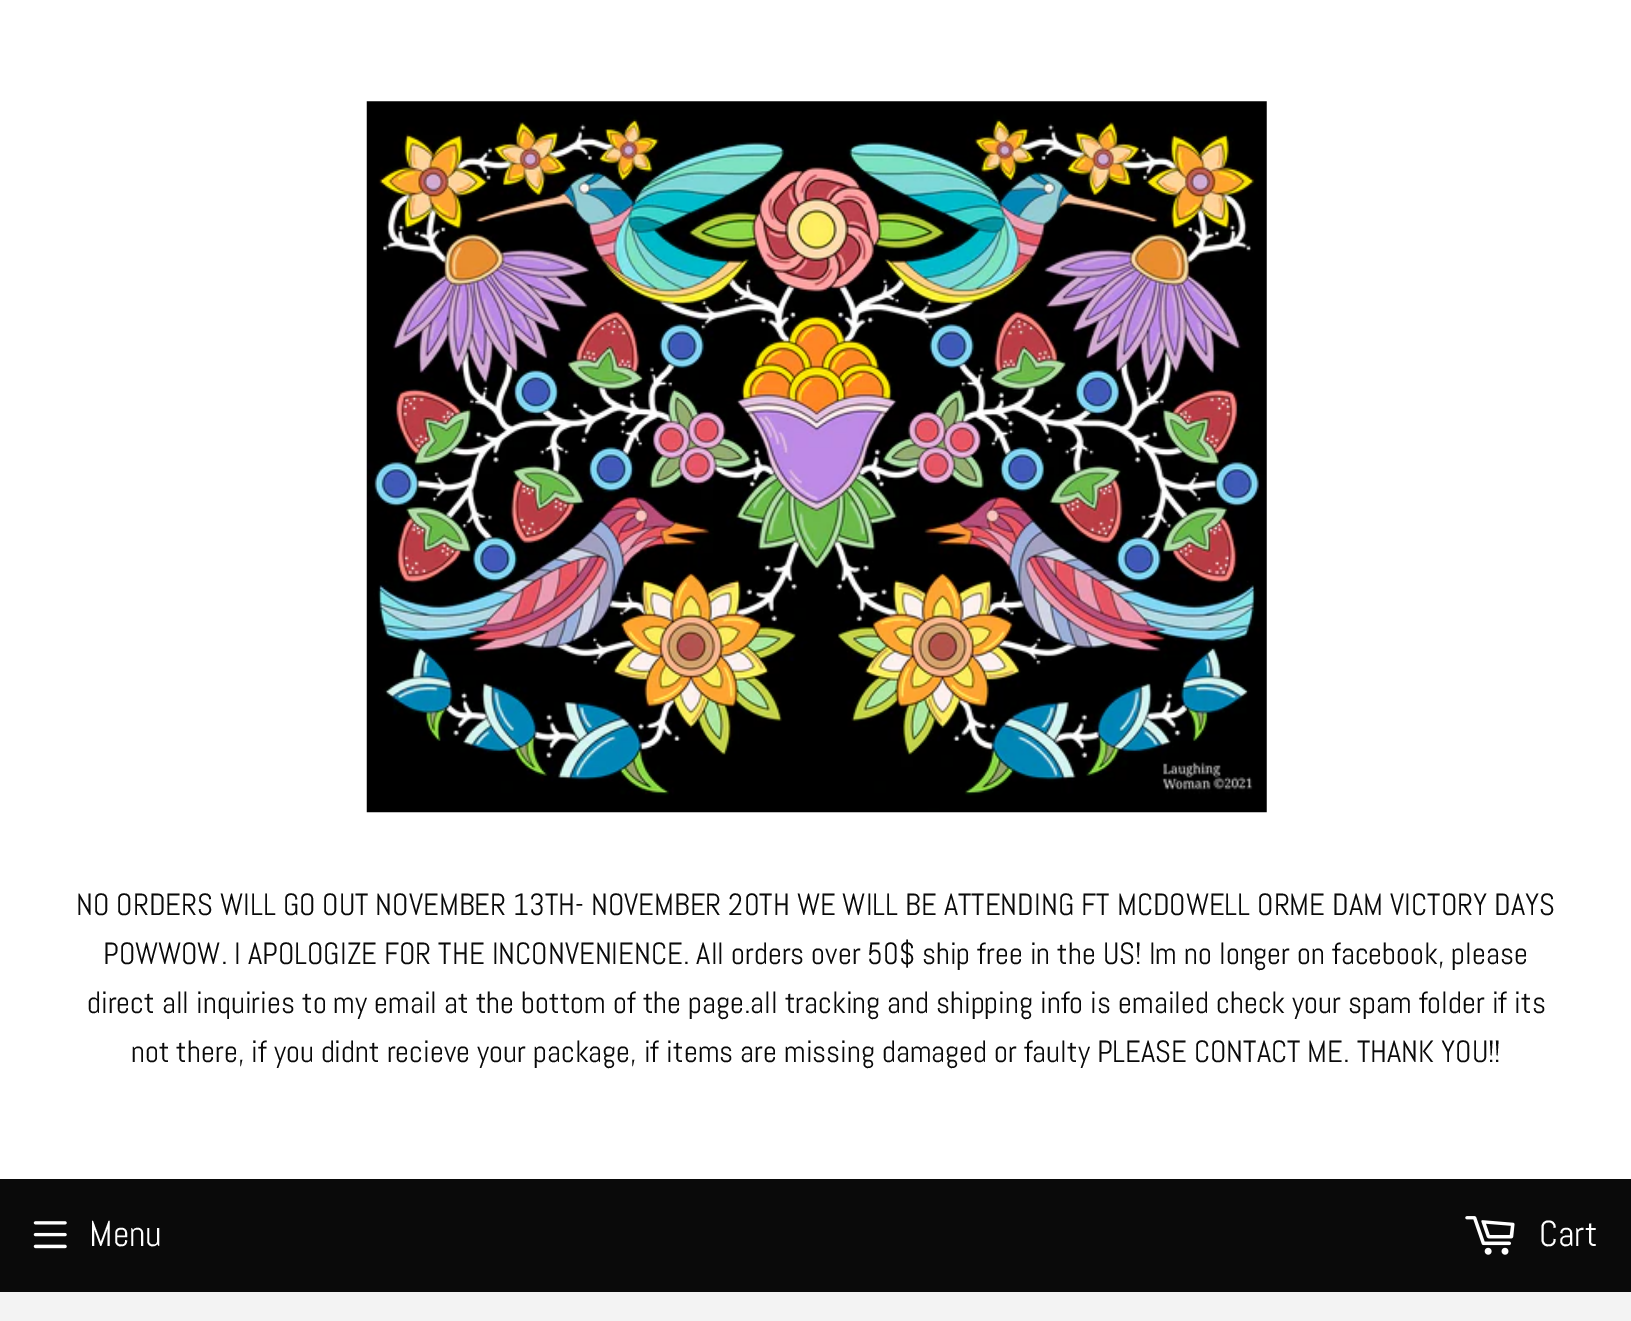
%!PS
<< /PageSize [1631 1321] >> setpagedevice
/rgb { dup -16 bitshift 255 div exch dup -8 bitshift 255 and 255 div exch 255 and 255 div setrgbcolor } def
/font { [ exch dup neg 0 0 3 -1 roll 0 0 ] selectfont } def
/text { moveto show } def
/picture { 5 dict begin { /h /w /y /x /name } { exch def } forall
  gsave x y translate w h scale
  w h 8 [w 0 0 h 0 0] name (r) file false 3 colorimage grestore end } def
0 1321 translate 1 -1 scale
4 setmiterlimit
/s1 { /Abel-Regular 30.6 font 16#0A0A0A rgb } def
/s2 { /Abel-Regular 36 font 16#FFFFFF rgb } def
16#F3F3F3 rgb
0 0 1631 1321 rectfill
16#FFFFFF rgb
0 0 1631 1179 rectfill
(pic1.raw) 366 101 901 712 picture
s1
(NO ORDERS WILL GO OUT NOVEMBER 13TH- NOVEMBER 20TH WE WILL BE ATTENDING FT MCDOWELL ORME DAM VICTORY DAYS) 76 915 text
(POWWOW. I APOLOGIZE FOR THE INCONVENIENCE. All orders over 50$ ship free in the US! Im no longer on facebook, please) 103 964 text
(direct all inquiries to my email at the bottom of the page.all tracking and shipping info is emailed check your spam folder if its) 87 1013 text
(not there, if you didnt recieve your package, if items are missing damaged or faulty PLEASE CONTACT ME. THANK YOU!!) 131 1062 text
0 1179 1631 113 rectfill
(pic2.raw) 33 1221 34 28 picture
s2
(Menu) 89 1246 text
(pic3.raw) 1465 1216 50 39 picture
(Cart) 1539 1246 text
showpage
